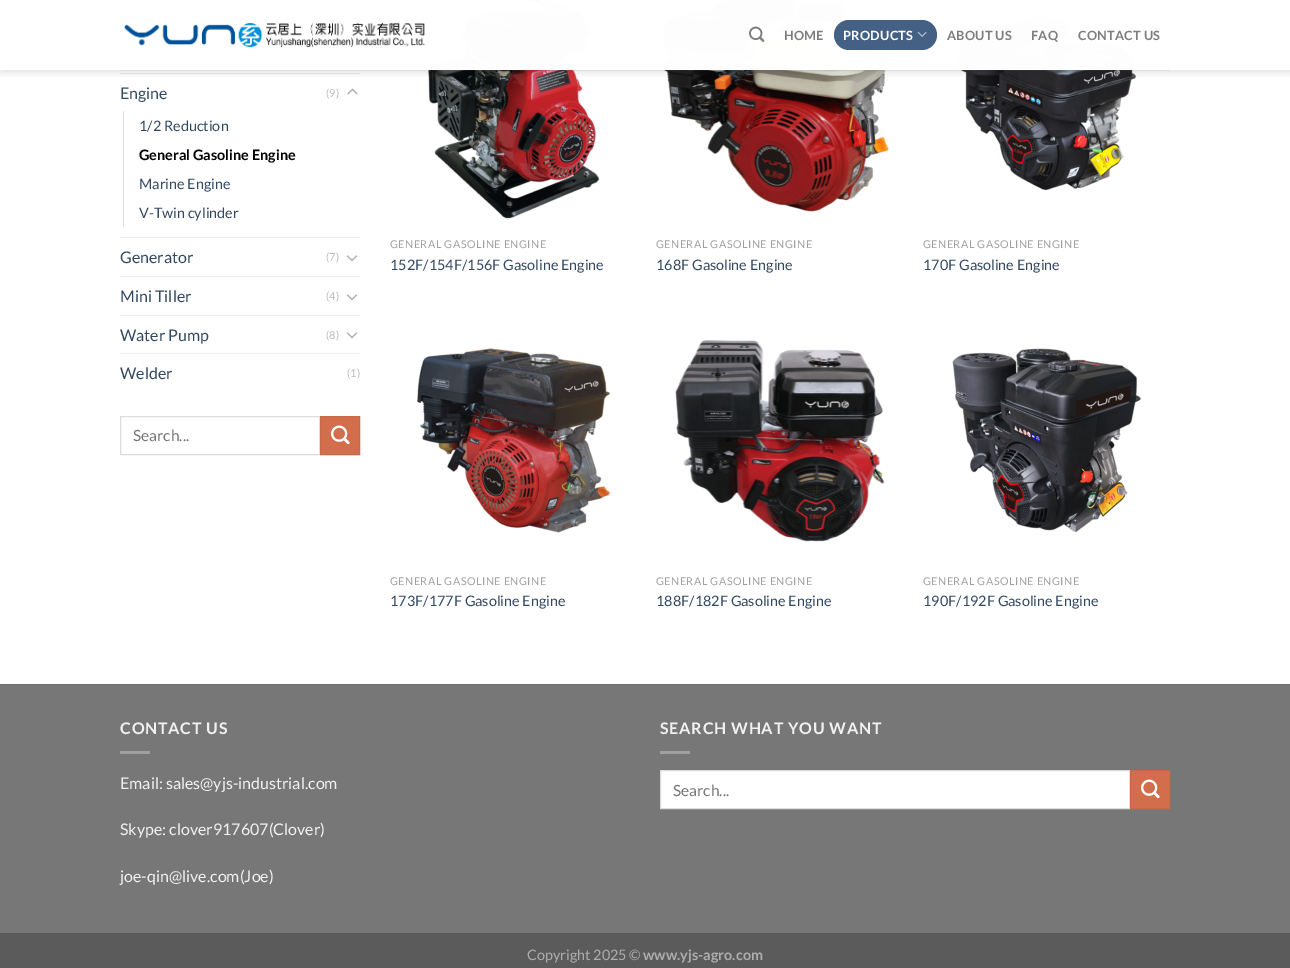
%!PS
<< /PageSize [1290 968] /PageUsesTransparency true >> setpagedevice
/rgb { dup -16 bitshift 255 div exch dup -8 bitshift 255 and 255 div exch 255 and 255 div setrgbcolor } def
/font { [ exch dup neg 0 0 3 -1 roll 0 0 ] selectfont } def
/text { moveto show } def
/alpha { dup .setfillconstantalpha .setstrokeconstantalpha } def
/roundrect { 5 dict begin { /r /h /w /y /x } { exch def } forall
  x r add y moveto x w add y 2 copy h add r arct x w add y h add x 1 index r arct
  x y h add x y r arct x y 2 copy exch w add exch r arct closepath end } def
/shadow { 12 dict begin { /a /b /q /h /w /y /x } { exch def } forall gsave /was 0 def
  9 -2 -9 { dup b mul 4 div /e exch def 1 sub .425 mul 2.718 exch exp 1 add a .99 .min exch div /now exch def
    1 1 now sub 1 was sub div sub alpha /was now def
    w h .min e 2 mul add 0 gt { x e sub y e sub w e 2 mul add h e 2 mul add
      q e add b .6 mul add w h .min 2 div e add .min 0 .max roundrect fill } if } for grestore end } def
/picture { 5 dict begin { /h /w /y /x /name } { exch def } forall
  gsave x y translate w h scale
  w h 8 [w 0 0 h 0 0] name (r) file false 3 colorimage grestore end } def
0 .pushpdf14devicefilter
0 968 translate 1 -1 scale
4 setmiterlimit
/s1 { /Lato-Regular 16 font 16#334862 rgb } def
/s2 { /Lato-Regular 11 font 16#BBBBBB rgb } def
/s3 { /Lato-Regular 14.4 font 16#334862 rgb } def
/s4 { /Lato-Bold 14.4 font 16#000000 rgb } def
/s5 { /Lato-Regular 15.5 font 16#757575 rgb } def
/s6 { /Lato-Regular 16 font 16#F1F1F1 rgb } def
/s7 { /Lato-Regular 14.4 font 16#ADADAD rgb } def
/s8 { /Lato-Bold 14.4 font 16#ADADAD rgb } def
16#FFFFFF rgb
0 0 1290 968 rectfill
16#E6E6E6 rgb
120 16 30 3 rectfill
16#ECECEC rgb
120 73 240 1 rectfill
(pic7.raw) 428 0 172 219 picture
(pic8.raw) 662 0 236 212 picture
(pic9.raw) 956 17 181 174 picture
gsave
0 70 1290 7 rectclip
16#000000 rgb
1 1 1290 70 0 5 0.15 shadow
grestore
0.9 alpha
16#FFFFFF rgb
120 0 1013 70 rectfill
428 0 705 70 rectfill
1 alpha
(pic1.raw) 124 23 301 25 picture
(pic2.raw) 749 26 16 16 picture
/Lato-Bold 12.75 font
16#7D7D7D rgb
784 40 moveto 0.25 0 (HOME) ashow
16#446084 rgb
834 20 103 30 15 roundrect fill
16#FFFFFF rgb
843 40 moveto 0.25 0 (PRODUCTS) ashow
(pic3.raw) 917 31 10 6 picture
16#7D7D7D rgb
947 40 moveto 0.25 0 (ABOUT US) ashow
1031 40 moveto 0.25 0 (FAQ) ashow
1078 40 moveto 0.25 0 (CONTACT US) ashow
0.1 alpha
16#777777 rgb
120 70 1050 1 rectfill
1 alpha
s1
(Engine) 120 99 text
s2
(\(9\)) 326 97 text
(pic4.raw) 347 88 11 7 picture
16#DDDDDD rgb
123 111 1 116 rectfill
s3
(1/2 Reduction) 139 131 text
s4
(General Gasoline Engine) 139 160 text
s3
(Marine Engine) 139 189 text
(V-Twin cylinder) 139 218 text
16#ECECEC rgb
120 237 240 1 rectfill
s1
(Generator) 120 263 text
s2
(\(7\)) 326 261 text
(pic5.raw) 346 255 12 7 picture
16#ECECEC rgb
120 276 240 1 rectfill
s1
(Mini Tiller) 120 302 text
s2
(\(4\)) 326 300 text
(pic5.raw) 346 294 12 7 picture
16#ECECEC rgb
120 315 240 1 rectfill
s1
(Water Pump) 120 341 text
s2
(\(8\)) 326 339 text
(pic5.raw) 346 332 12 7 picture
16#ECECEC rgb
120 353 240 1 rectfill
s1
(Welder) 120 379 text
s2
(\(1\)) 347 377 text
16#DDDDDD rgb
120.5 416.5 199 38 rectstroke
s5
(Search...) 133 441 text
16#D26E4B rgb
320.5 416.5 moveto 359.5 416.5 lineto 359.5 454.5 lineto 320.5 454.5 lineto closepath gsave fill grestore
16#C86947 rgb
stroke
(pic6.raw) 331 425 19 20 picture
/Lato-Regular 10.75 font
16#A0A0A0 rgb
390 248 moveto 0.5 0 (GENERAL GASOLINE ENGINE) ashow
s3
(152F/154F/156F Gasoline Engine) 390 270 text
/Lato-Regular 10.75 font
16#A0A0A0 rgb
656 248 moveto 0.5 0 (GENERAL GASOLINE ENGINE) ashow
s3
(168F Gasoline Engine) 656 270 text
/Lato-Regular 10.75 font
16#A0A0A0 rgb
923 248 moveto 0.5 0 (GENERAL GASOLINE ENGINE) ashow
s3
(170F Gasoline Engine) 923 270 text
(pic10.raw) 417 348 193 185 picture
/Lato-Regular 10.75 font
16#A0A0A0 rgb
390 585 moveto 0.5 0 (GENERAL GASOLINE ENGINE) ashow
s3
(173F/177F Gasoline Engine) 390 606 text
(pic11.raw) 675 340 210 202 picture
/Lato-Regular 10.75 font
16#A0A0A0 rgb
656 585 moveto 0.5 0 (GENERAL GASOLINE ENGINE) ashow
s3
(188F/182F Gasoline Engine) 656 606 text
(pic12.raw) 952 348 189 185 picture
/Lato-Regular 10.75 font
16#A0A0A0 rgb
923 585 moveto 0.5 0 (GENERAL GASOLINE ENGINE) ashow
s3
(190F/192F Gasoline Engine) 923 606 text
16#777777 rgb
0 685 1290 248 rectfill
16#717171 rgb
0 684 1290 1 rectfill
/Lato-Bold 16 font
16#F1F1F1 rgb
120 734 moveto 0.8 0 (CONTACT US) ashow
16#A0A0A0 rgb
120 751 30 3 rectfill
s6
(Email: sales@yjs-industrial.com) 120 789 text
(Skype: clover917607\(Clover\)) 120 835 text
(joe-qin@live.com\(Joe\)) 120 882 text
/Lato-Bold 16 font
660 734 moveto 0.8 0 (SEARCH WHAT YOU WANT) ashow
16#A0A0A0 rgb
660 751 30 3 rectfill
16#FFFFFF rgb
660.5 770.5 moveto 1129.5 770.5 lineto 1129.5 808.5 lineto 660.5 808.5 lineto closepath gsave fill grestore
16#DDDDDD rgb
stroke
s5
(Search...) 673 796 text
16#D26E4B rgb
1130.5 770.5 moveto 1169.5 770.5 lineto 1169.5 808.5 lineto 1130.5 808.5 lineto closepath gsave fill grestore
16#C86947 rgb
stroke
(pic6.raw) 1141 779 19 20 picture
16#5B5B5B rgb
0 933 1290 35 rectfill
s7
(Copyright 2025 ©) 527 960 text
s8
(www.yjs-agro.com) 643 960 text
.poppdf14devicefilter showpage
